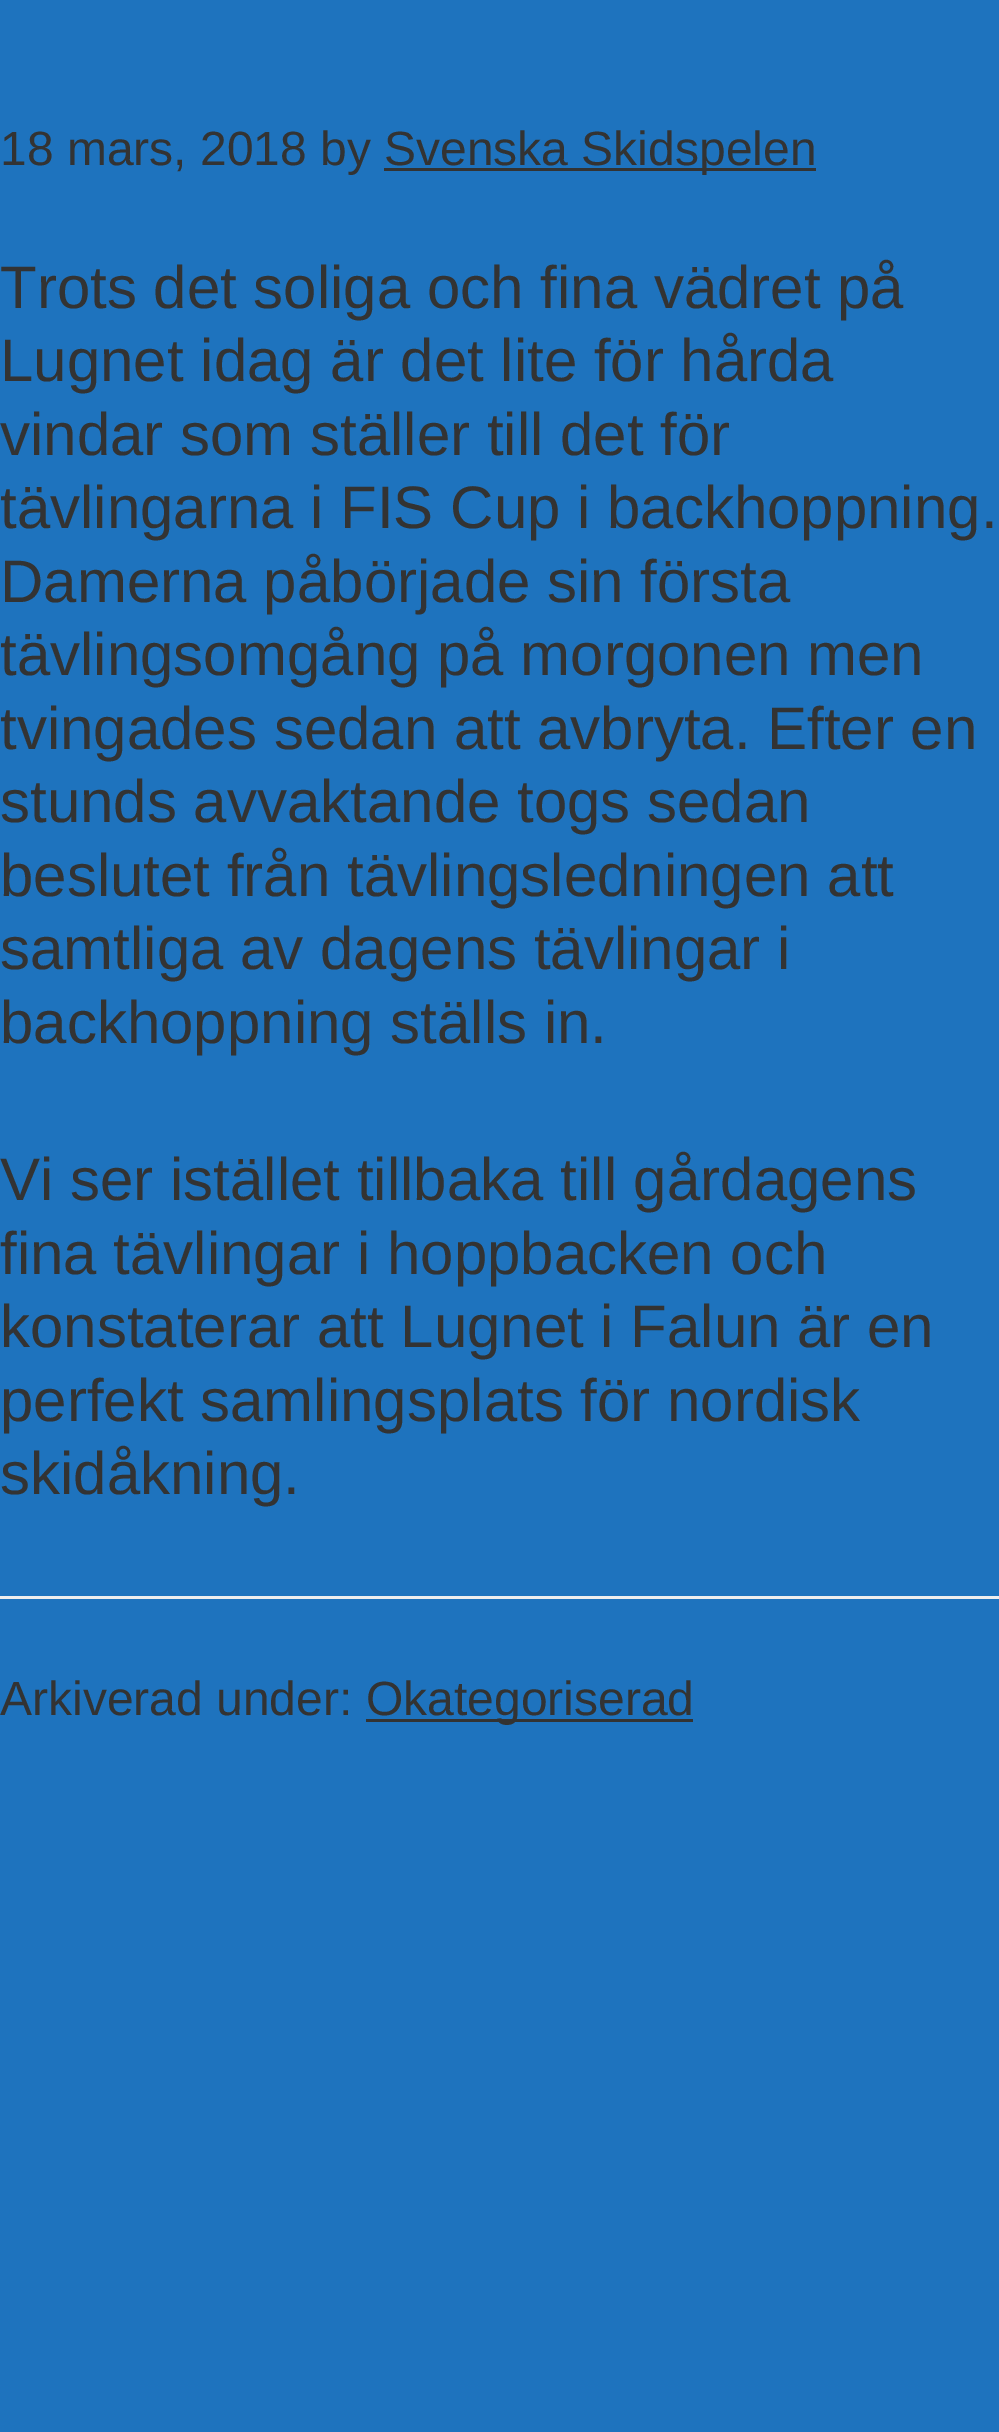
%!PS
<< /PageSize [999 2432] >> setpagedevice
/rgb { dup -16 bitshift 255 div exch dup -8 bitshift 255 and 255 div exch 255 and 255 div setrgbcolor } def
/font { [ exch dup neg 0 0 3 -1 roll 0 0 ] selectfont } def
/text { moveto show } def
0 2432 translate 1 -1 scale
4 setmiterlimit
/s1 { /LiberationSans-Regular 48 font 16#333333 rgb } def
/s2 { /LiberationSans-Regular 60 font 16#333333 rgb } def
16#1E73BE rgb
0 0 999 2432 rectfill
s1
(18 mars, 2018 by) 0 165 text
384 168 432 3 rectfill
(Svenska Skidspelen) 384 165 text
s2
(Trots det soliga och fina vädret på) 0 308 text
(Lugnet idag är det lite för hårda) 0 381 text
(vindar som ställer till det för) 0 455 text
(tävlingarna i FIS Cup i backhoppning.) 0 528 text
(Damerna påbörjade sin första) 0 602 text
(tävlingsomgång på morgonen men) 0 675 text
(tvingades sedan att avbryta. Efter en) 0 749 text
(stunds avvaktande togs sedan) 0 822 text
(beslutet från tävlingsledningen att) 0 896 text
(samtliga av dagens tävlingar i) 0 969 text
(backhoppning ställs in.) 0 1043 text
(Vi ser istället tillbaka till gårdagens) 0 1200 text
(fina tävlingar i hoppbacken och) 0 1274 text
(konstaterar att Lugnet i Falun är en) 0 1347 text
(perfekt samlingsplats för nordisk) 0 1421 text
(skidåkning.) 0 1494 text
16#EEEEEE rgb
0 1596 999 3 rectfill
s1
(Arkiverad under:) 0 1715 text
366 1719 327 3 rectfill
(Okategoriserad) 366 1715 text
showpage
